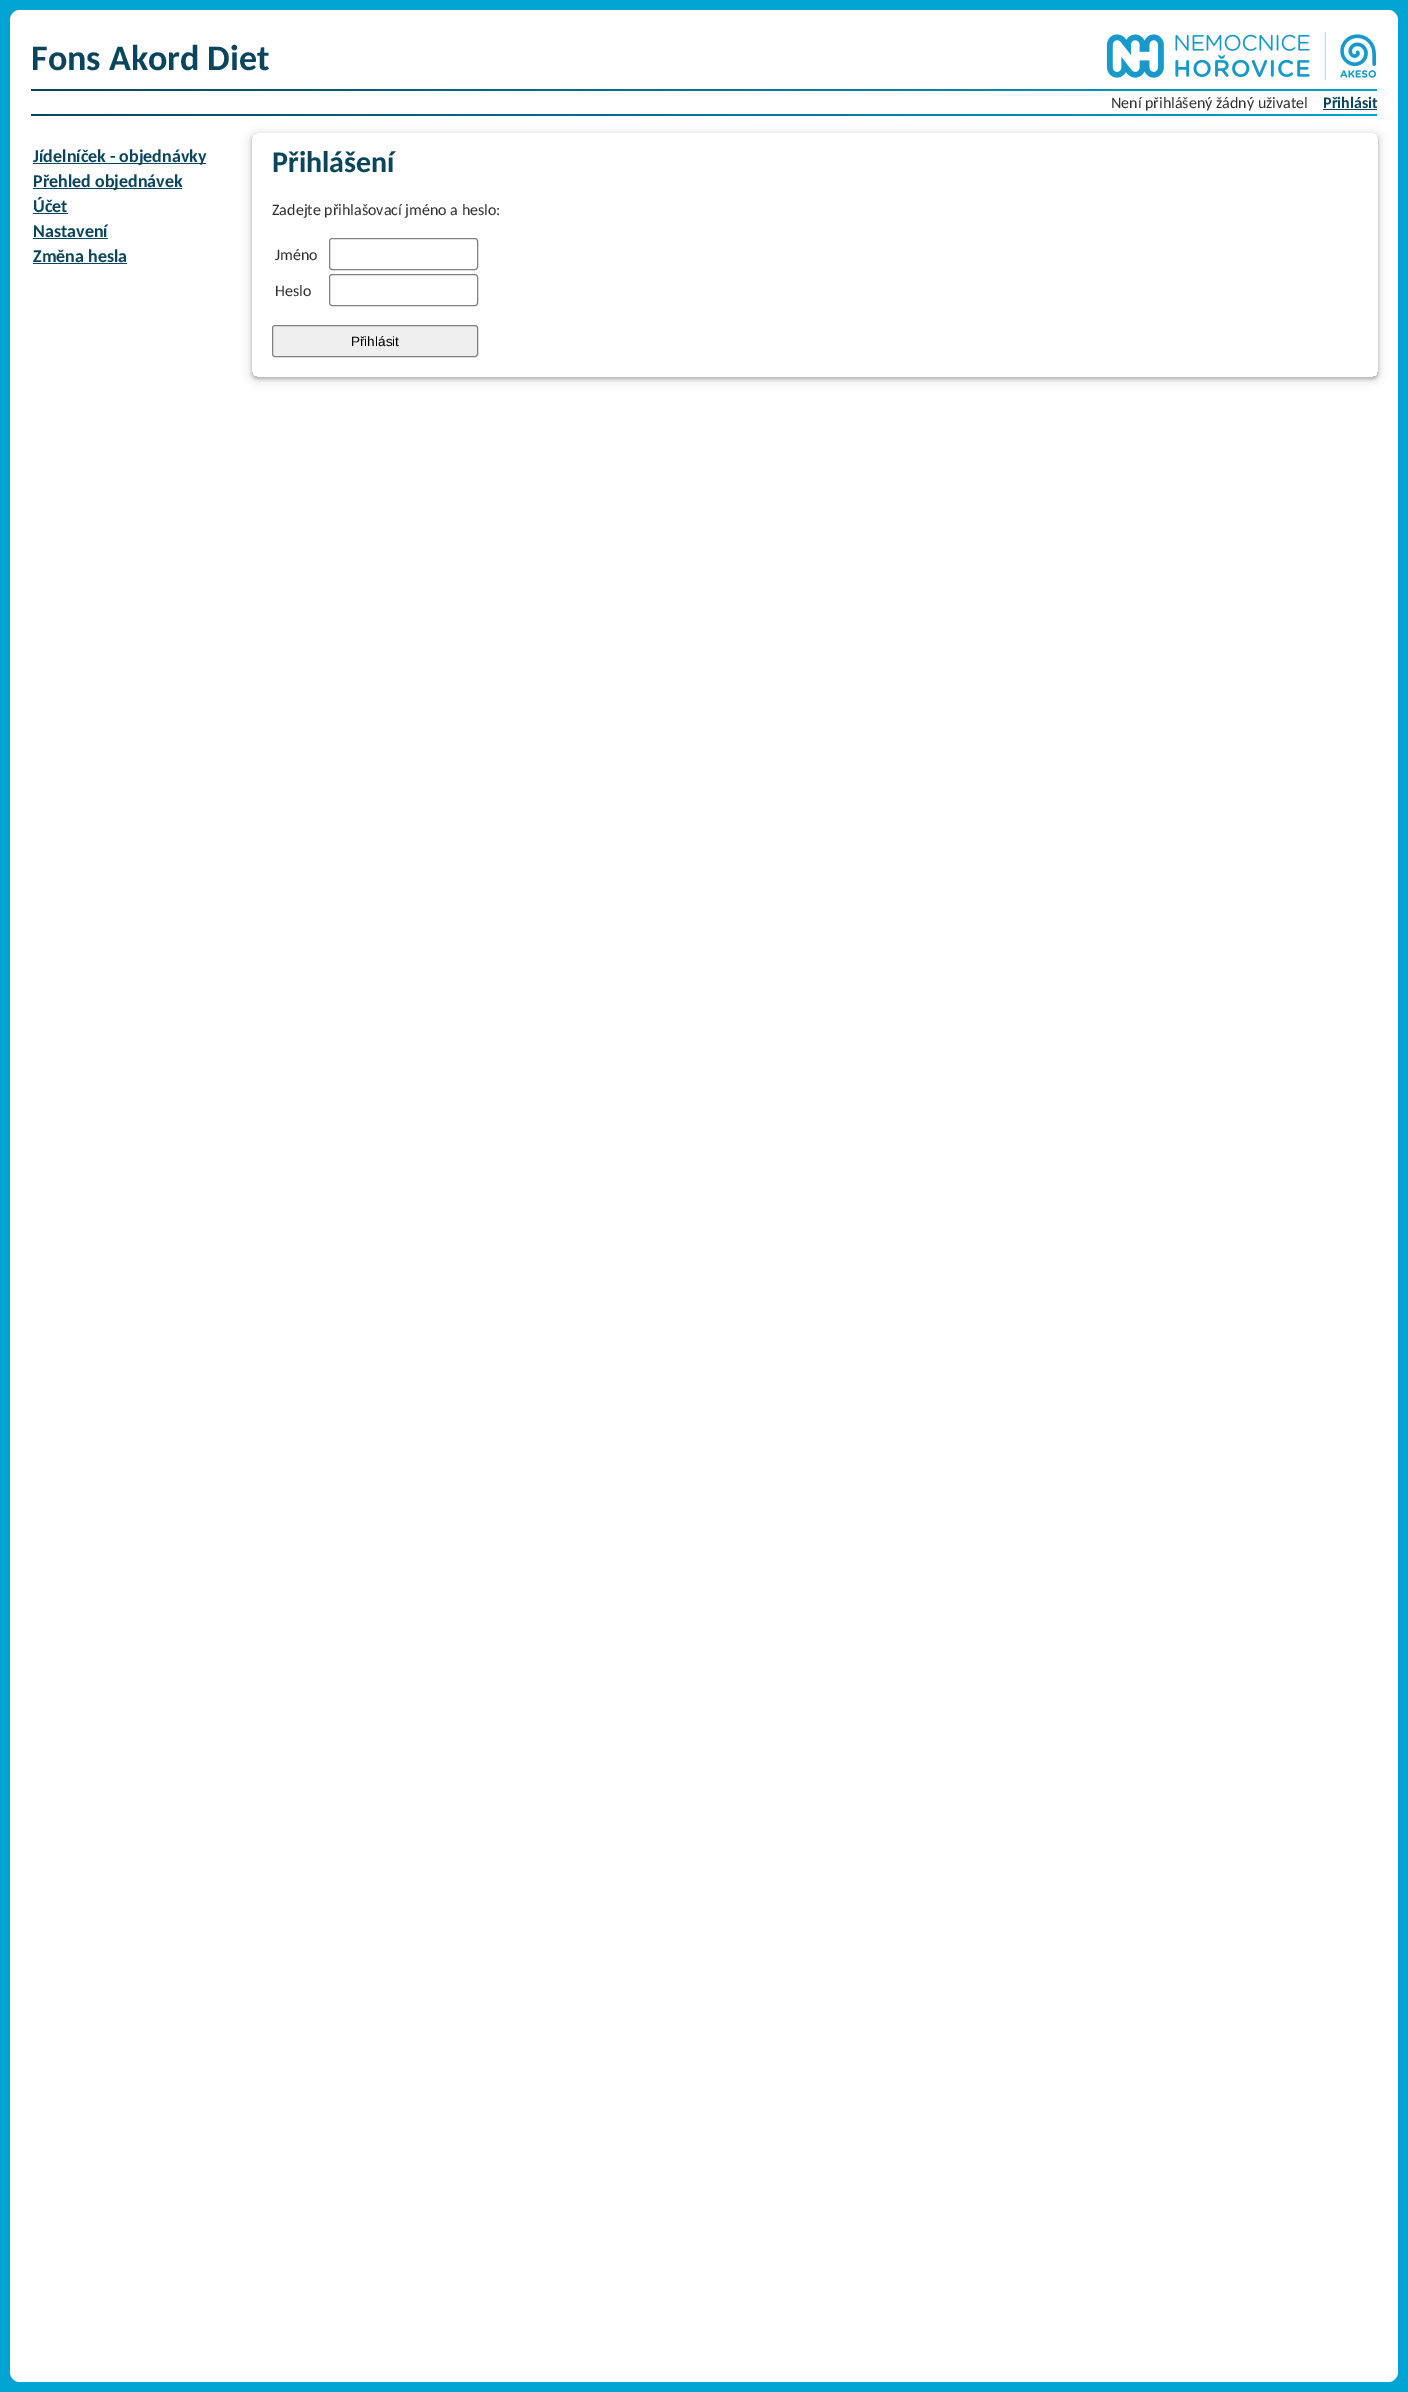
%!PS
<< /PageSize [1408 2392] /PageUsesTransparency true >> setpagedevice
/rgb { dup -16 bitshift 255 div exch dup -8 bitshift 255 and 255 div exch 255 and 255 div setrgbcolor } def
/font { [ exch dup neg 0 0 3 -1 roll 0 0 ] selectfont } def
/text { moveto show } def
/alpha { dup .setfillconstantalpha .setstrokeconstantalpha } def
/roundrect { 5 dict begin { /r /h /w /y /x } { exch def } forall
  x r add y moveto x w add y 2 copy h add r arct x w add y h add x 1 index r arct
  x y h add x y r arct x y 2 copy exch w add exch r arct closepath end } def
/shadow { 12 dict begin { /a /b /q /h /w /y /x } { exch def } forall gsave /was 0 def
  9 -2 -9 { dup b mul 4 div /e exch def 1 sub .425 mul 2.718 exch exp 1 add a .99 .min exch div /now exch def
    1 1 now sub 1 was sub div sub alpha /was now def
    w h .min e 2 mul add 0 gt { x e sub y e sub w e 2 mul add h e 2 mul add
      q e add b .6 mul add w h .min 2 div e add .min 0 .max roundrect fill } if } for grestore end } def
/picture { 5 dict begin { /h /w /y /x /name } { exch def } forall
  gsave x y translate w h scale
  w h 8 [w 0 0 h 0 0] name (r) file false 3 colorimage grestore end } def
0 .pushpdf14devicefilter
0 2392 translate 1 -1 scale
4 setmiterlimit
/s1 { /Carlito-Bold 36 font 16#09465D rgb } def
/s2 { /Carlito-Regular 16 font 16#303030 rgb } def
/s3 { /Carlito-Bold 16 font 16#09465D rgb } def
/s4 { /Carlito-Bold 18 font 16#09465D rgb } def
/s5 { /Carlito-Bold 30 font 16#09465D rgb } def
/s6 { /LiberationSans-Regular 13.5 font 16#000000 rgb } def
16#00A3D1 rgb
0 0 1408 2392 rectfill
16#FFFFFF rgb
10 10 1388 2372 10 roundrect fill
s1
(Fons Akord Diet) 31 70 text
(pic1.raw) 1106 31 271 50 picture
gsave 31 89 moveto 1377 89 lineto 1377 91 lineto 31 91 lineto closepath clip newpath
<< /ShadingType 2 /ColorSpace /DeviceRGB /Coords [31 90 1377 90] /Extend [true true] /Function << /FunctionType 2 /Domain [0 1] /C0 [0.035 0.275 0.365] /C1 [0 0.639 0.82] /N 1 >> >> shfill grestore
s2
(Není přihlášený žádný uživatel) 1111 108 text
s3
(Přihlásit) 1323 108 text
1323 109 54 1 rectfill
gsave 31 114 moveto 1377 114 lineto 1377 116 lineto 31 116 lineto closepath clip newpath
<< /ShadingType 2 /ColorSpace /DeviceRGB /Coords [31 115 1377 115] /Extend [true true] /Function << /FunctionType 2 /Domain [0 1] /C0 [0.035 0.275 0.365] /C1 [0 0.639 0.82] /N 1 >> >> shfill grestore
33 163 173 1 rectfill
s4
(Jídelníček - objednávky) 33 162 text
33 188 149 1 rectfill
(Přehled objednávek) 33 187 text
(Účet) 33 212 text
33 213 35 1 rectfill
(Nastavení) 33 237 text
33 238 75 1 rectfill
(Změna hesla) 33 262 text
33 263 94 1 rectfill
gsave
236 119 moveto 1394 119 lineto 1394 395 lineto 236 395 lineto closepath 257 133 moveto 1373 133 lineto 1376 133 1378 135 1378 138 curveto 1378 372 lineto 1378 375 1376 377 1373 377 curveto 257 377 lineto 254 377 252 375 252 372 curveto 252 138 lineto 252 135 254 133 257 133 curveto closepath eoclip newpath
16#000000 rgb
252 135 1126 244 5 5 0.19 shadow
grestore
gsave
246 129 moveto 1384 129 lineto 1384 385 lineto 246 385 lineto closepath 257 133 moveto 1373 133 lineto 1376 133 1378 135 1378 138 curveto 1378 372 lineto 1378 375 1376 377 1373 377 curveto 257 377 lineto 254 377 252 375 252 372 curveto 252 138 lineto 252 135 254 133 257 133 curveto closepath eoclip newpath
16#000000 rgb
252 135 1126 244 5 1.5 0.19 shadow
grestore
s5
(Přihlášení) 272 172 text
s2
(Zadejte přihlašovací jméno a heslo:) 272 215 text
(Jméno) 275 260 text
16#808080 rgb
329.5 238.5 148 31 2.5 roundrect stroke
s2
(Heslo) 275 296 text
16#808080 rgb
329.5 274.5 148 31 2.5 roundrect stroke
16#EFEFEF rgb
272.5 325.5 205 31 2.5 roundrect gsave fill grestore
16#808080 rgb
stroke
s6
(Přihlásit) 351 346 text
.poppdf14devicefilter showpage
